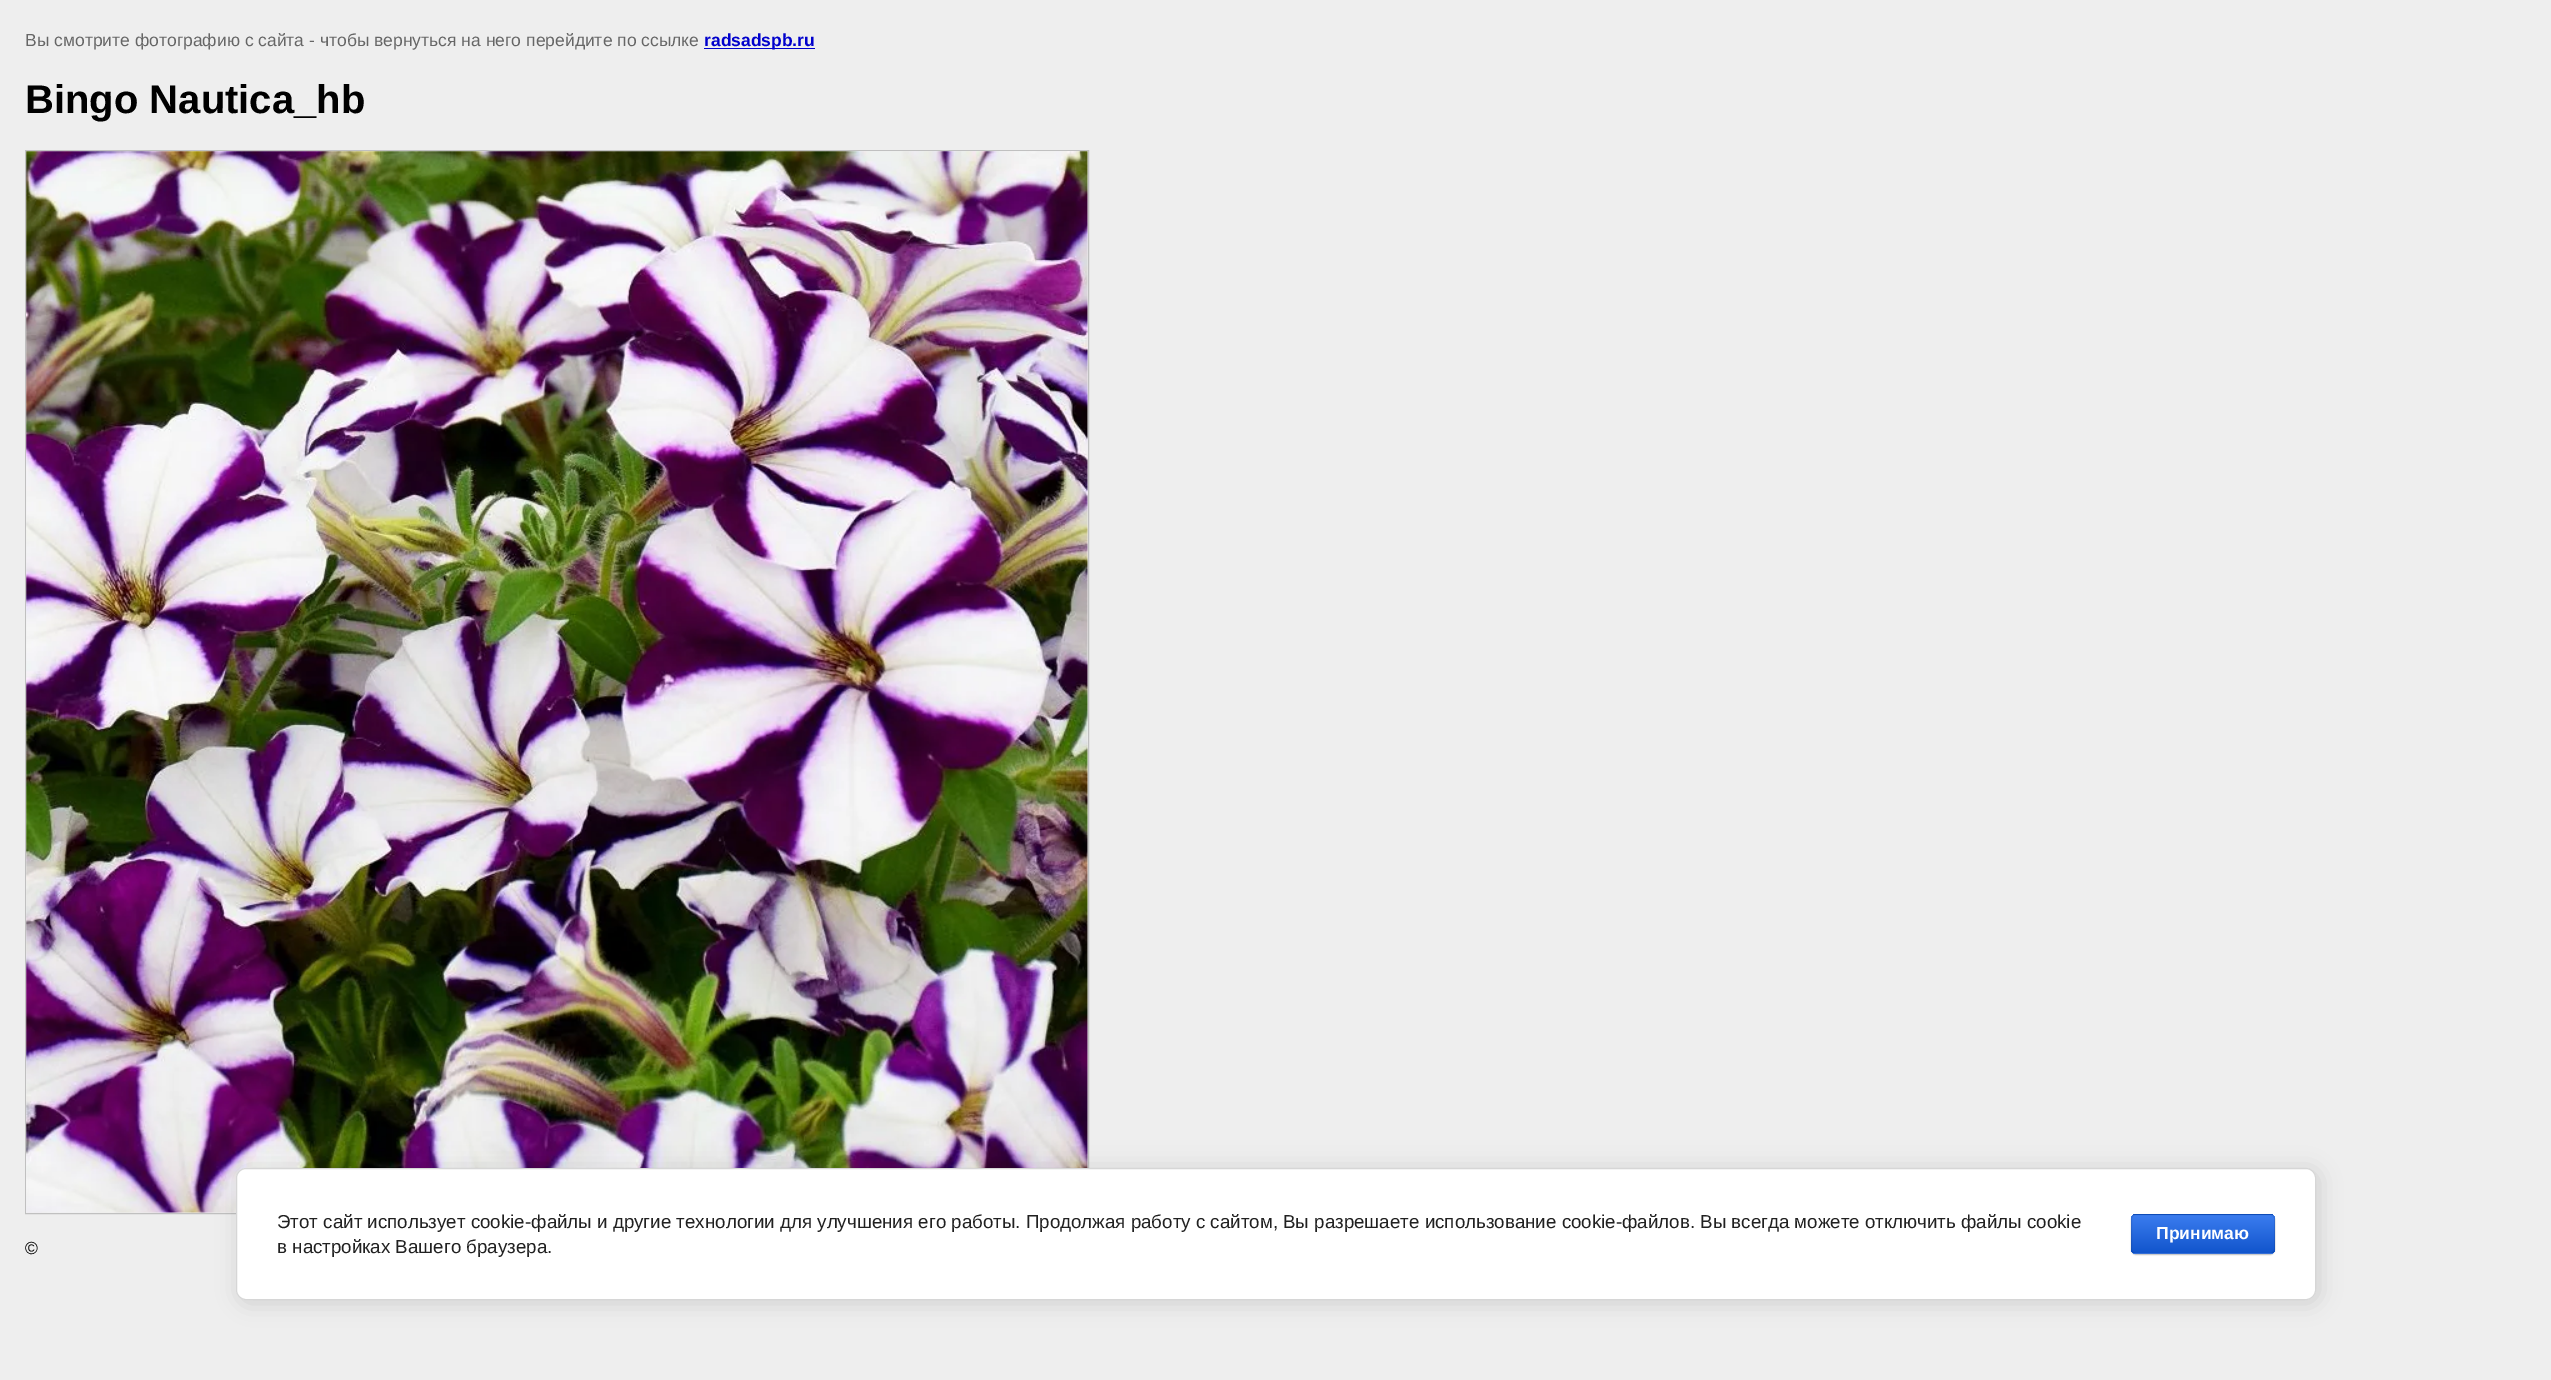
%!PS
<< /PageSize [2551 1380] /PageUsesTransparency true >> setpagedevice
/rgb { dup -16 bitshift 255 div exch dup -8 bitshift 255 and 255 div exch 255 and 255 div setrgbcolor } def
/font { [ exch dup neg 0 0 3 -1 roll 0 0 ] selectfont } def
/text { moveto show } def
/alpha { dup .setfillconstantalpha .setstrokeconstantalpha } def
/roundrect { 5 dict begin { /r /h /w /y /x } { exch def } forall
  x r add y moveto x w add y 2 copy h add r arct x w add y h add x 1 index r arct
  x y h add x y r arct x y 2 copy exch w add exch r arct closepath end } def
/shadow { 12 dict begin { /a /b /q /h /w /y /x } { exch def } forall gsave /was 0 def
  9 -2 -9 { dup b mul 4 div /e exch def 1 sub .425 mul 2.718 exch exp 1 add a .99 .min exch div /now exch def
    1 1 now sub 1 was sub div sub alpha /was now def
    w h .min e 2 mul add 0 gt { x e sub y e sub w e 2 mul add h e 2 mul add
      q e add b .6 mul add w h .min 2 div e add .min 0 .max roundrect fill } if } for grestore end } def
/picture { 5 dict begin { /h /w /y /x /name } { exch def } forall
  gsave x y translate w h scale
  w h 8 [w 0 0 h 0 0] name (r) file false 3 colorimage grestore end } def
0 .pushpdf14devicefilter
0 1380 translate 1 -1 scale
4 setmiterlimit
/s1 { /LiberationSans-Regular 17.5 font 16#666666 rgb } def
/s2 { /LiberationSans-Bold 17.5 font 16#0000CC rgb } def
/s3 { /LiberationSans-Bold 40 font 16#000000 rgb } def
/s4 { /LiberationSans-Regular 17.5 font 16#000000 rgb } def
/s5 { /LiberationSans-Regular 18.75 font 16#212121 rgb } def
/s6 { /LiberationSans-Bold 17.5 font 16#FFFFFF rgb } def
16#EEEEEE rgb
0 0 2551 1380 rectfill
s1
(Вы смотрите фотографию с сайта - чтобы вернуться на него перейдите по ссылке) 25 46 text
16#0000CC rgb
704 48 111 1 rectfill
s2
(radsadspb.ru) 704 46 text
s3
(Bingo Nautica_hb) 25 113 text
16#C0C0C0 rgb
25.5 150.5 1063 1063 rectstroke
(pic1.raw) 26 151 1062 1062 picture
s4
(©) 25 1254 text
239 1170 2080 133 10 11 0.14 shadow
16#FFFFFF rgb
236.5 1168.5 2079 131 9.5 roundrect gsave fill grestore
16#D6D6D6 rgb
stroke
s5
(Этот сайт использует cookie-файлы и другие технологии для улучшения его работы. Продолжая работу с сайтом, Вы разрешаете использование cookie-файлов. Вы всегда можете отключить файлы cookie) 277 1228 text
(в настройках Вашего браузера.) 277 1253 text
16#000000 rgb
2131 1215 144 40 5 0.5 0.2 shadow
gsave
2131 1214 144 40 5 roundrect clip newpath
gsave 2131 1214 moveto 2275 1214 lineto 2275 1215 lineto 2131 1215 lineto closepath clip newpath
<< /ShadingType 2 /ColorSpace /DeviceRGB /Coords [2203 1178 2203 1215] /Extend [true true] /Function << /FunctionType 2 /Domain [0 1] /C0 [0.231 0.486 0.937] /C1 [0.067 0.333 0.8] /N 1 >> >> shfill grestore
gsave 2131 1215 moveto 2275 1215 lineto 2275 1253 lineto 2131 1253 lineto closepath clip newpath
<< /ShadingType 2 /ColorSpace /DeviceRGB /Coords [2203 1215 2203 1253] /Extend [true true] /Function << /FunctionType 2 /Domain [0 1] /C0 [0.231 0.486 0.937] /C1 [0.067 0.333 0.8] /N 1 >> >> shfill grestore
gsave 2131 1253 moveto 2275 1253 lineto 2275 1254 lineto 2131 1254 lineto closepath clip newpath
<< /ShadingType 2 /ColorSpace /DeviceRGB /Coords [2203 1253 2203 1290] /Extend [true true] /Function << /FunctionType 2 /Domain [0 1] /C0 [0.231 0.486 0.937] /C1 [0.067 0.333 0.8] /N 1 >> >> shfill grestore
grestore
0.1 alpha
2131.5 1214.5 143 39 4.5 roundrect stroke
1 alpha
s6
(Принимаю) 2156 1239 text
.poppdf14devicefilter showpage
